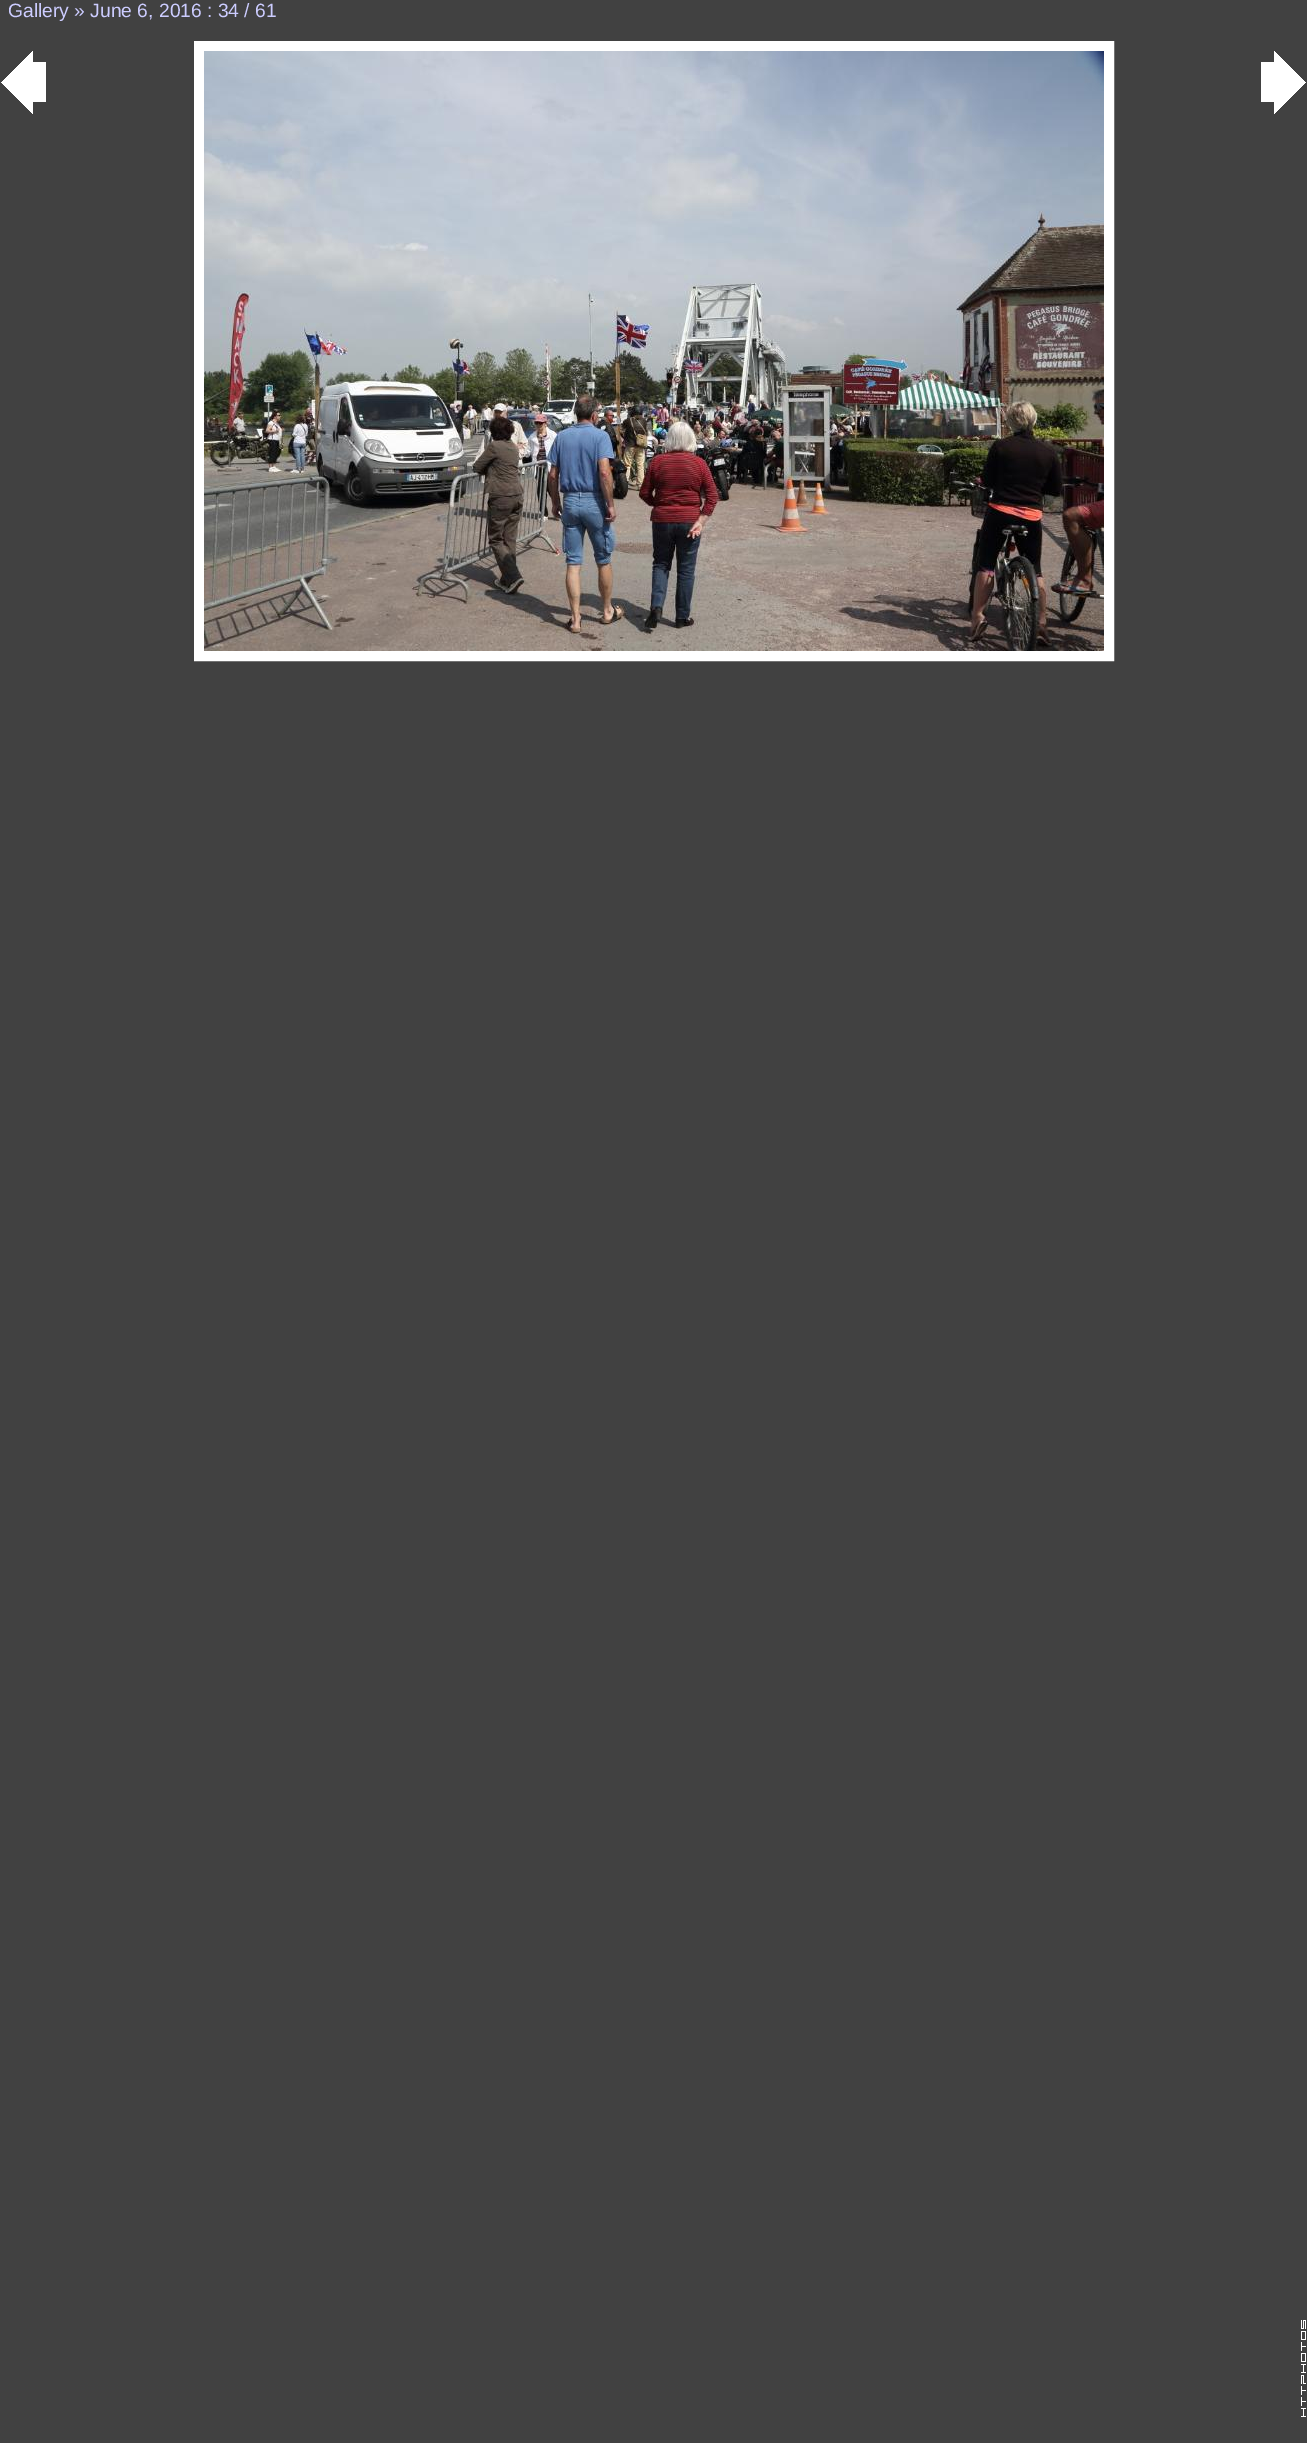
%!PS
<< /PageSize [1307 2443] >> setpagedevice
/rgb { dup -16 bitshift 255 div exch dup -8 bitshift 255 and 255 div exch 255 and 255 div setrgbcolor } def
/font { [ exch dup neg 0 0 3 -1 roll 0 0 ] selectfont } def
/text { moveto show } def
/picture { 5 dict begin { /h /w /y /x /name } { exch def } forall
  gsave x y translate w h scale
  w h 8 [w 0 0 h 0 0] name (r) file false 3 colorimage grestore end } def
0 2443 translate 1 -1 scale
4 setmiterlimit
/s1 { /LiberationSans-Regular 19.25 font 16#CCCCFF rgb } def
16#414141 rgb
0 0 1307 2443 rectfill
s1
(Gallery » June 6, 2016 : 34 / 61) 8 17 text
(pic1.raw) 1 51 45 63 picture
16#FFFFFF rgb
10 setlinewidth
199 46 910 610 rectstroke
(pic2.raw) 204 51 900 600 picture
(pic3.raw) 1261 51 45 63 picture
(pic4.raw) 1301 2320 5 97 picture
showpage
